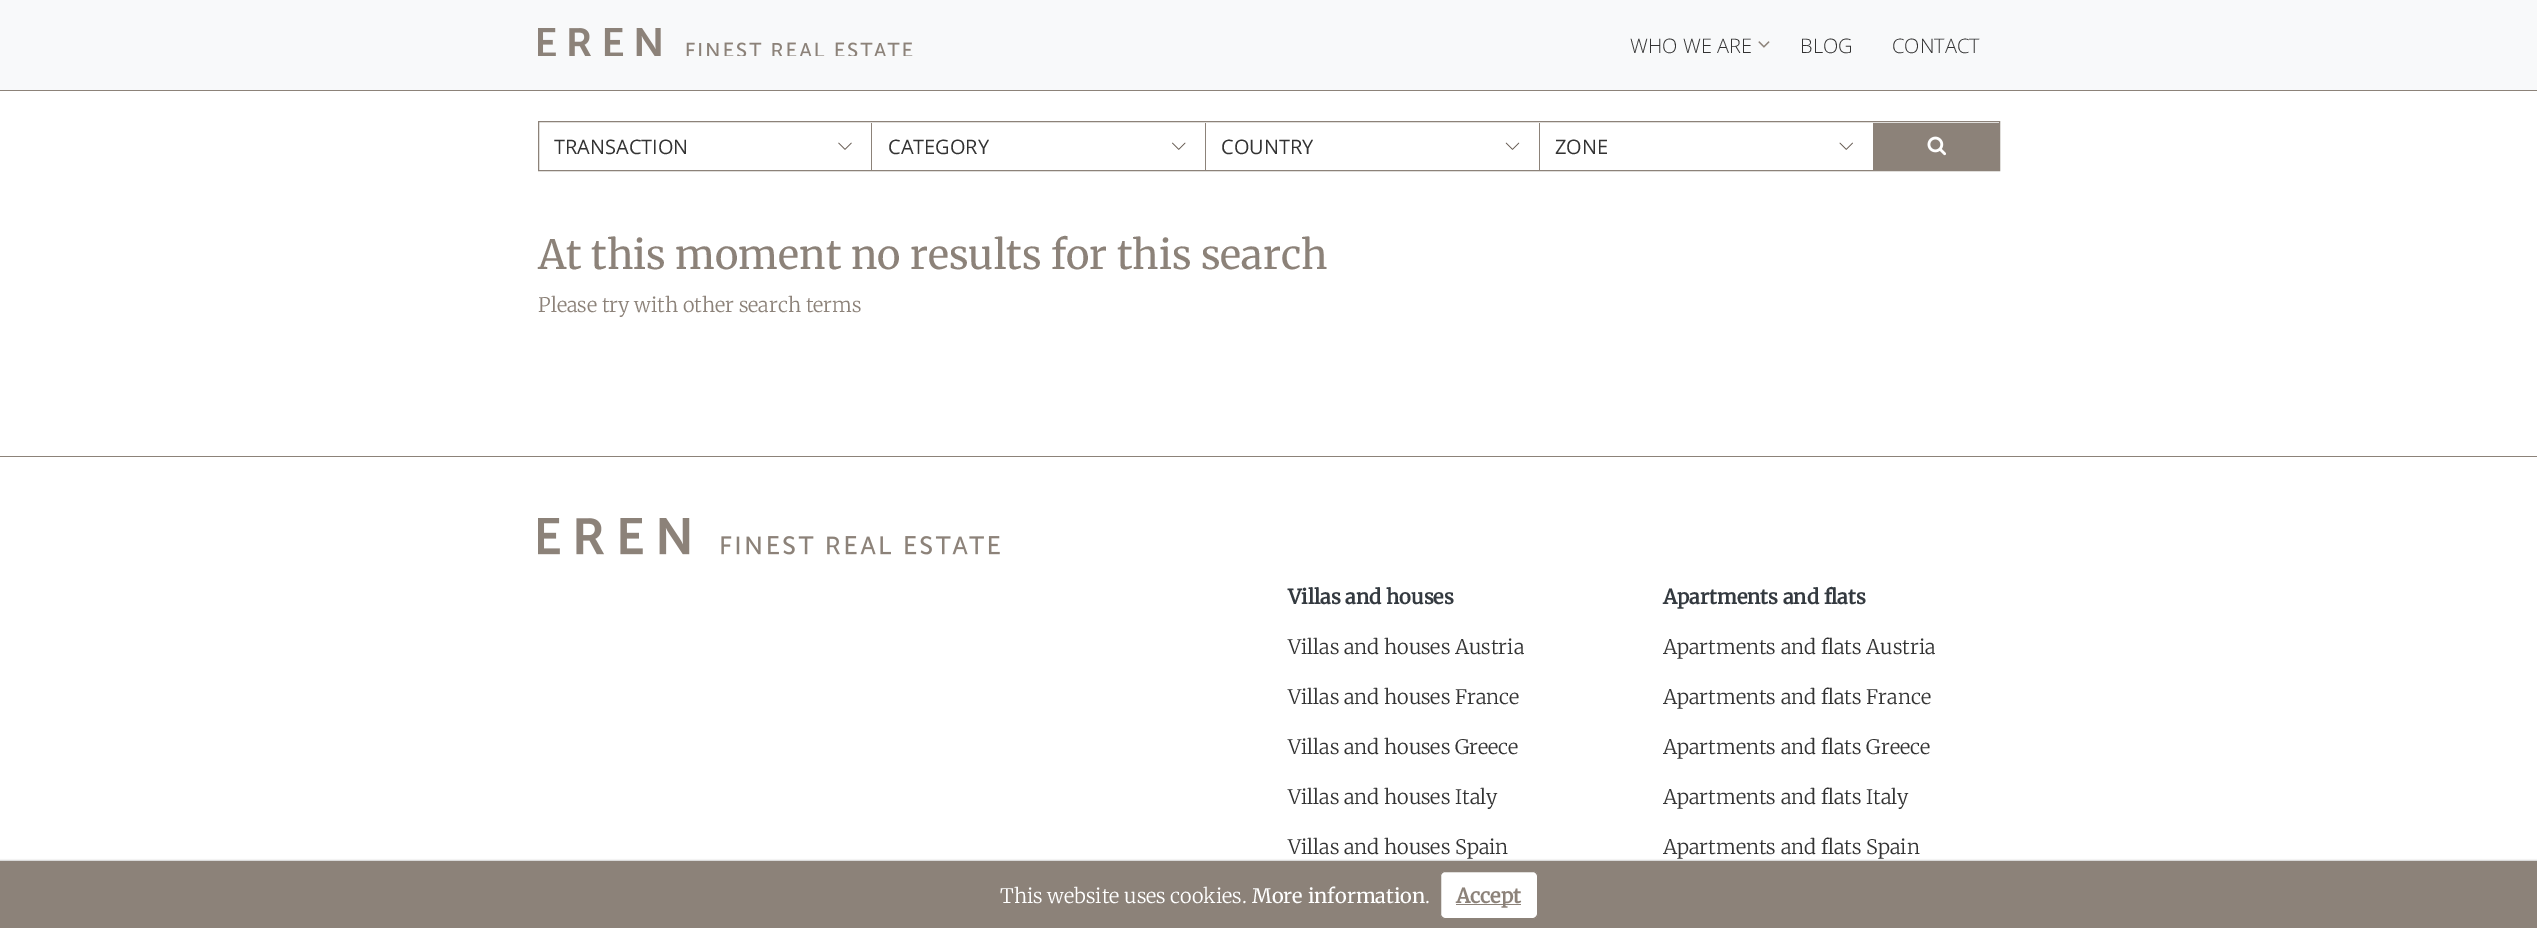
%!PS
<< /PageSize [2537 928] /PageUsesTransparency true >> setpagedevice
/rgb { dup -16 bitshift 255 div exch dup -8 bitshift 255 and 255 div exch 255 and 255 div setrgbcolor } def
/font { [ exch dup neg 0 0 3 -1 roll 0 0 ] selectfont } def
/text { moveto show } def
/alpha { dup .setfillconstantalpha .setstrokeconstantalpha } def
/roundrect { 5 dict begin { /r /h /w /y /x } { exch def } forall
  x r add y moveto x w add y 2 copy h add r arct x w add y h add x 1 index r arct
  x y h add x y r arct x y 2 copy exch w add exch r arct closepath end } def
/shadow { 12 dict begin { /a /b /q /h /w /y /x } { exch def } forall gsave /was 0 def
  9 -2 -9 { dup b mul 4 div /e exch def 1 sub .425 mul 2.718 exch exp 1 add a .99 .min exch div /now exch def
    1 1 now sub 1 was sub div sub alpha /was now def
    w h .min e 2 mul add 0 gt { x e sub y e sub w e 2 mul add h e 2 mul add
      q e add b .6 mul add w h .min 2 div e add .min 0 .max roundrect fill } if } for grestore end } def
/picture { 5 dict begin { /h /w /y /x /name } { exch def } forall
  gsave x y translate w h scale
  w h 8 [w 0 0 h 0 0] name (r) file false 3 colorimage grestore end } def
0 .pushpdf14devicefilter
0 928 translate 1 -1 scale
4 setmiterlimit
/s1 { /OpenSans-Light 20 font 16#333333 rgb } def
/s2 { /OpenSans-Regular 20 font 16#333333 rgb } def
/s3 { /Merriweather-Regular 40 font 16#8C8279 rgb } def
/s4 { /Merriweather-Light 20 font 16#8C8279 rgb } def
/s5 { /Merriweather-Bold 20 font 16#343A40 rgb } def
/s6 { /Merriweather-Light 20 font 16#333333 rgb } def
/s7 { /Merriweather-Light 20 font 16#FFFFFF rgb } def
/s8 { /Merriweather-Regular 20 font 16#FFFFFF rgb } def
/s9 { /Merriweather-Bold 20 font 16#8C8279 rgb } def
16#FFFFFF rgb
0 0 2537 928 rectfill
16#F8F9FA rgb
0 0 2537 90 rectfill
16#8C8279 rgb
0 90 2537 1 rectfill
(pic1.raw) 538 28 375 28 picture
s1
(WHO WE ARE) 1630 53 text
(pic2.raw) 1758 41 12 7 picture
(BLOG) 1800 53 text
(CONTACT) 1892 53 text
16#8C8279 rgb
538.5 121.5 1461 49 rectstroke
(pic3.raw) 838 142 14 8 picture
871 123 1 47 rectfill
s2
(TRANSACTION) 554 154 text
(pic4.raw) 1172 142 14 8 picture
16#8C8279 rgb
1205 123 1 47 rectfill
s2
(CATEGORY) 888 154 text
(pic5.raw) 1505 142 15 8 picture
16#8C8279 rgb
1539 123 1 47 rectfill
s2
(COUNTRY) 1221 154 text
(pic6.raw) 1839 142 14 8 picture
16#8C8279 rgb
1873 123 126 47 rectfill
s2
(ZONE) 1555 154 text
(pic7.raw) 1927 136 19 20 picture
s3
(At this moment no results for this search) 538 269 text
s4
(Please try with other search terms) 538 312 text
0 456 2537 1 rectfill
(pic8.raw) 538 518 462 37 picture
s5
(Villas and houses) 1288 604 text
s6
(Villas and houses Austria) 1288 654 text
(Villas and houses France) 1288 704 text
(Villas and houses Greece) 1288 754 text
(Villas and houses Italy) 1288 804 text
(Villas and houses Spain) 1288 854 text
s5
(Apartments and flats) 1663 604 text
s6
(Apartments and flats Austria) 1663 654 text
(Apartments and flats France) 1663 704 text
(Apartments and flats Greece) 1663 754 text
(Apartments and flats Italy) 1663 804 text
(Apartments and flats Spain) 1663 854 text
16#000000 rgb
0 861 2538 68 0 1 0.45 shadow
16#8C8279 rgb
0 861 2537 67 rectfill
s7
(This website uses cookies.) 1000 903 text
s8
(More information) 1252 903 text
s7
(.) 1425 903 text
1440.5 871.5 97 47 4.5 roundrect gsave fill grestore
16#8C8279 rgb
stroke
1456 904 65 1 rectfill
s9
(Accept) 1456 903 text
.poppdf14devicefilter showpage
